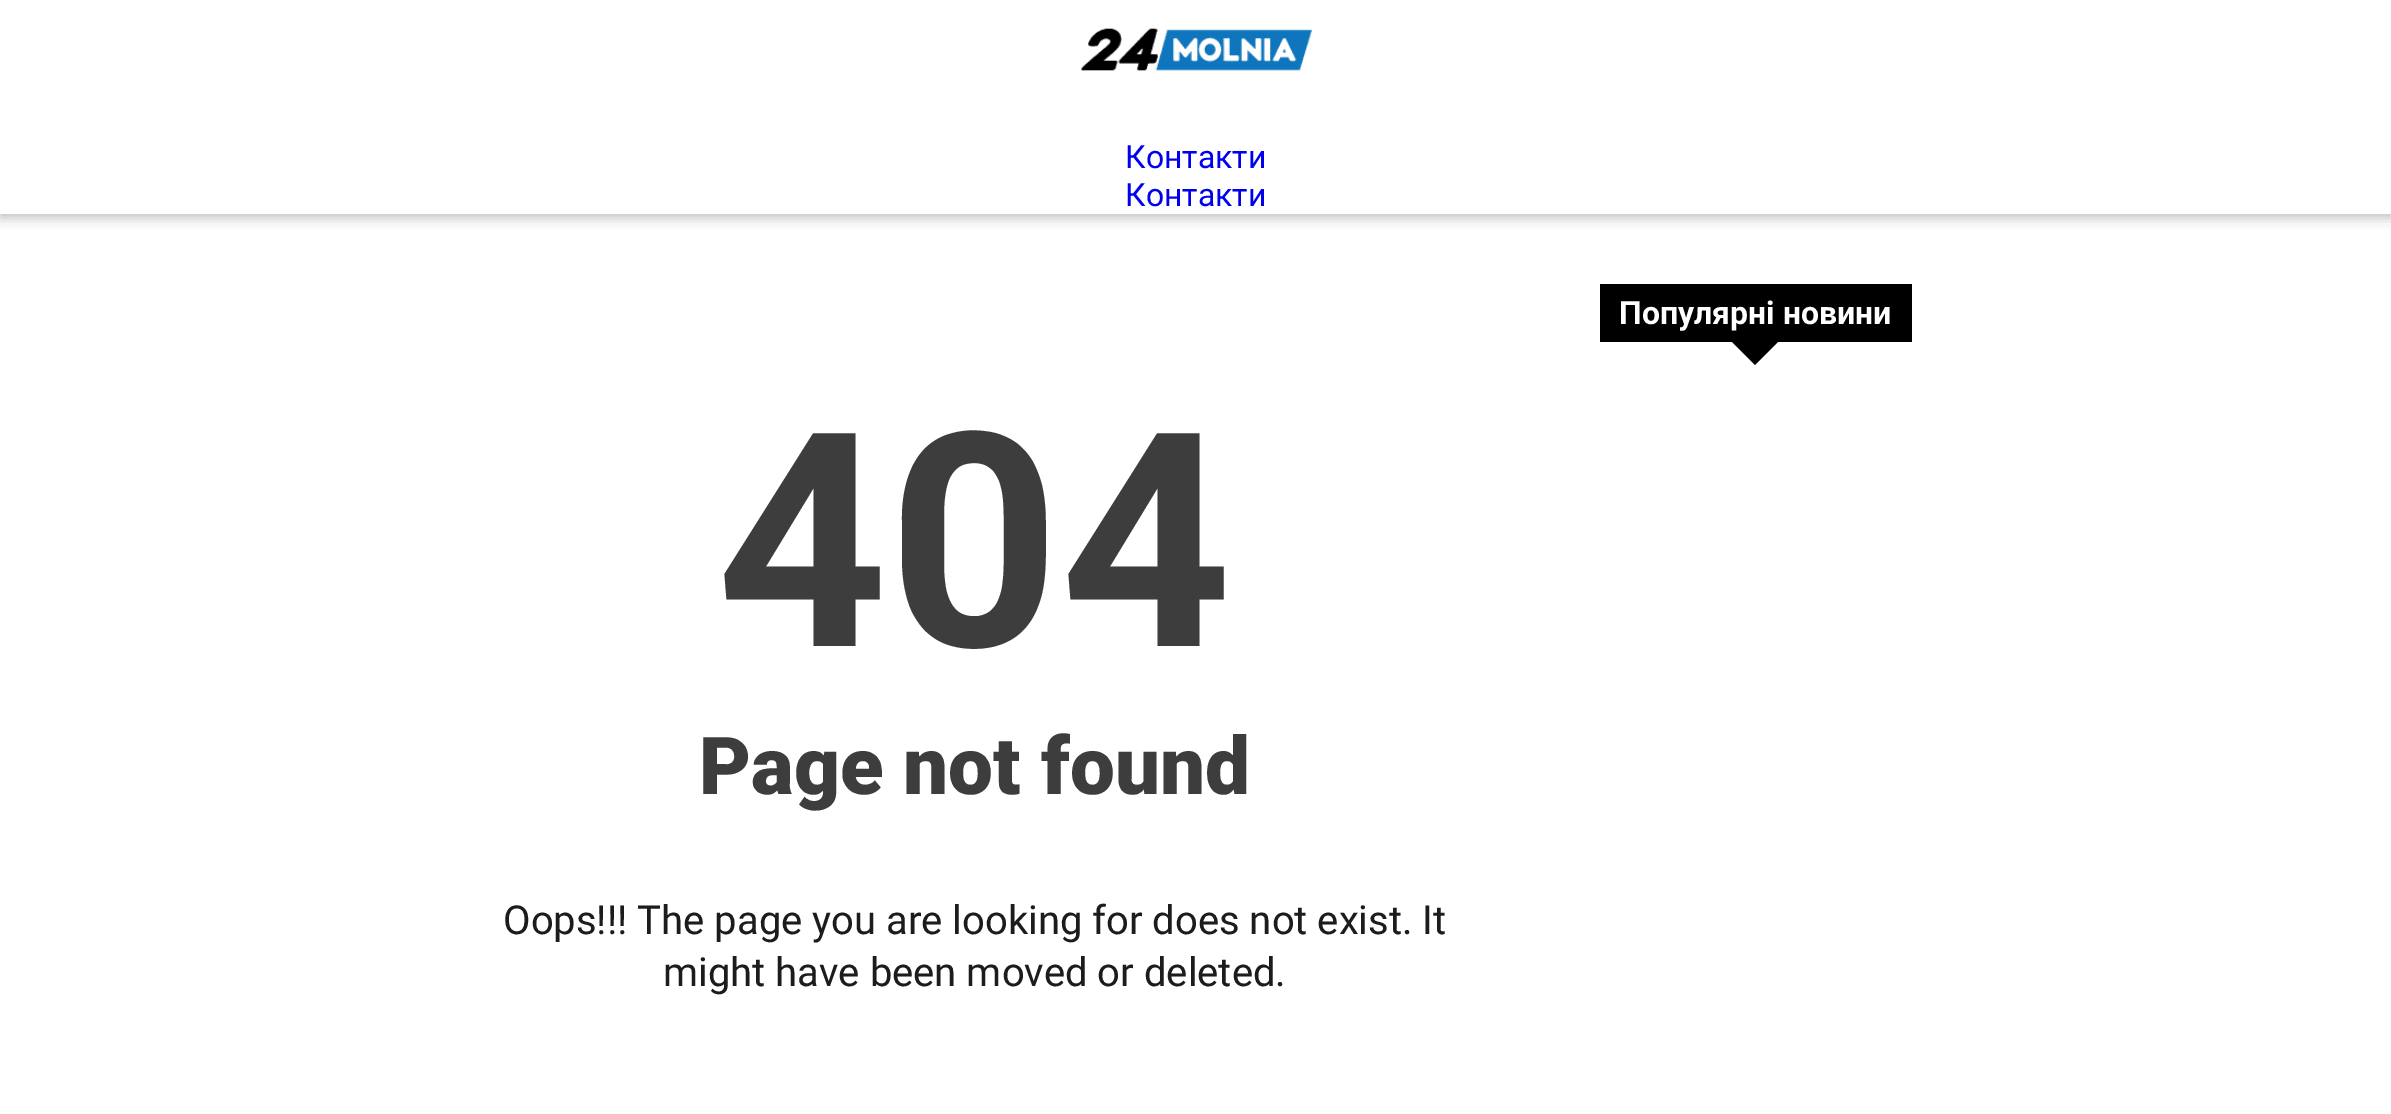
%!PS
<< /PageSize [2391 1114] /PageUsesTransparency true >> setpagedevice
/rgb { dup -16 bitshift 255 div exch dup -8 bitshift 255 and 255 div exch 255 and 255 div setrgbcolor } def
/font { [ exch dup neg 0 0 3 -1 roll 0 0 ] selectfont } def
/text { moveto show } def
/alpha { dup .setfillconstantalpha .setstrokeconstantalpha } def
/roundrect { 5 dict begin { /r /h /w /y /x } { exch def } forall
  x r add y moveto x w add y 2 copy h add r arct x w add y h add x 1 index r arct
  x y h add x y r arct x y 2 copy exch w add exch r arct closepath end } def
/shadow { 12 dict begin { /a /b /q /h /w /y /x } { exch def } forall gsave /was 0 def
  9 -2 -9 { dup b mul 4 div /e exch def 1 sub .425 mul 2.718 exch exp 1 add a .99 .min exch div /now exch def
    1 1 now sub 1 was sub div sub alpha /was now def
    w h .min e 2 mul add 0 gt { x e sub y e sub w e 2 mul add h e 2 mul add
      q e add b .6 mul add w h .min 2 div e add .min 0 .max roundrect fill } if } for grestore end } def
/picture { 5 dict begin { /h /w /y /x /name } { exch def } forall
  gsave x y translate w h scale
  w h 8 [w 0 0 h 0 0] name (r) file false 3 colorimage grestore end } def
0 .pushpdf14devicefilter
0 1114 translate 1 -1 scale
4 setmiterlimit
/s1 { /Roboto-Regular 32 font 16#0000EE rgb } def
/s2 { /Roboto-Bold 32 font 16#FFFFFF rgb } def
/s3 { /Roboto-Bold 300 font 16#3D3D3D rgb } def
/s4 { /Roboto-Black 80 font 16#3D3D3D rgb } def
/s5 { /Roboto-Regular 40 font 16#1C1C1C rgb } def
16#FFFFFF rgb
0 0 2391 1114 rectfill
gsave
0 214 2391 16 rectclip
16#BDBDBD rgb
0 4 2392 214 0 6 1 shadow
grestore
(pic1.raw) 1081 28 231 43 picture
s1
(Контакти) 1125 168 text
(Контакти) 1125 206 text
16#000000 rgb
1755 319 moveto 1778 342 lineto 1755 365 lineto 1732 342 lineto closepath fill
1600 284 312 58 rectfill
s2
(Популярні новини) 1619 324 text
s3
(404) 716 646 text
s4
(Page not found) 699 794 text
s5
(Oops!!! The page you are looking for does not exist. It) 503 934 text
(might have been moved or deleted.) 663 986 text
.poppdf14devicefilter showpage
